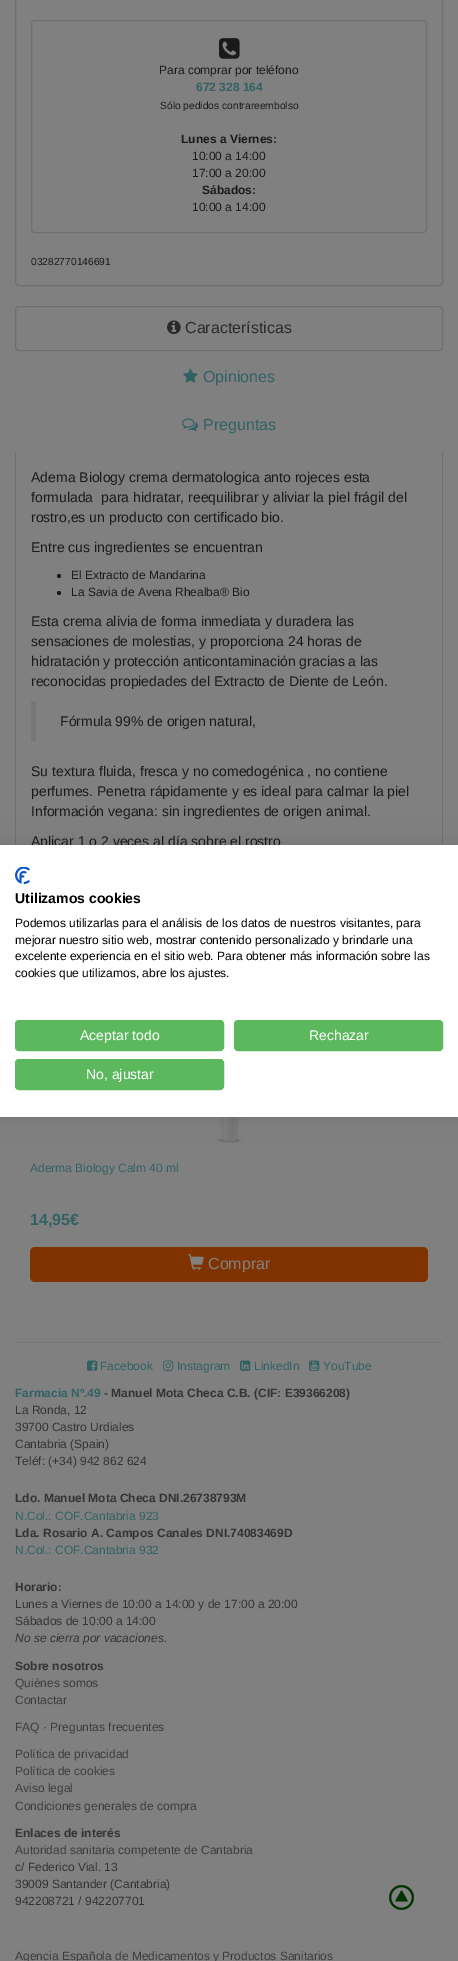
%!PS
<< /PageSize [458 1961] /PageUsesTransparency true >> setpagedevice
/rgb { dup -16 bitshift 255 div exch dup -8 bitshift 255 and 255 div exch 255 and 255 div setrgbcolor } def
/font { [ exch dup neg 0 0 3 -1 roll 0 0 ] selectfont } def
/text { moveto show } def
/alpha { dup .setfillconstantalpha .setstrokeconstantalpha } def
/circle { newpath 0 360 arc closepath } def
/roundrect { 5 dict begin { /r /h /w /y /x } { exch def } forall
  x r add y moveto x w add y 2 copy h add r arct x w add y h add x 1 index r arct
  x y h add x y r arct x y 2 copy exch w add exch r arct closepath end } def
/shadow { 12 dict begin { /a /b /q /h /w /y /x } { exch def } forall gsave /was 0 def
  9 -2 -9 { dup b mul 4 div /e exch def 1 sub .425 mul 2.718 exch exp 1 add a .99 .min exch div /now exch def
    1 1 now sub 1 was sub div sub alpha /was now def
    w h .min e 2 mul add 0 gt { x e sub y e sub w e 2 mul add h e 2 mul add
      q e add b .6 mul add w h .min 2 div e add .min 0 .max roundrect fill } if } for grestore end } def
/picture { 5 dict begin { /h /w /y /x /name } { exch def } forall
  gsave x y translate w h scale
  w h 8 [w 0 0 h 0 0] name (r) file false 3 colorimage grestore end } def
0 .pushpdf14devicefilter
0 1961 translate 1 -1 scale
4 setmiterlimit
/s1 { /LiberationSans-Regular 12 font 16#1A1A1A rgb } def
/s2 { /LiberationSans-Bold 12 font 16#316163 rgb } def
/s3 { /LiberationSans-Regular 10.25 font 16#1A1A1A rgb } def
/s4 { /LiberationSans-Bold 12 font 16#1A1A1A rgb } def
/s5 { /LiberationSans-Regular 16 font 16#2B2B2B rgb } def
/s6 { /LiberationSans-Regular 16 font 16#316163 rgb } def
/s7 { /LiberationSans-Regular 14 font 16#1A1A1A rgb } def
/s8 { /LiberationSans-Regular 12 font 16#316163 rgb } def
/s9 { /LiberationSans-Bold 16 font 16#316163 rgb } def
/s10 { /LiberationSans-Regular 16 font 16#808080 rgb } def
/s11 { /LiberationSans-Bold 14 font 16#000000 rgb } def
/s12 { /LiberationSans-Regular 12 font 16#000000 rgb } def
/s13 { /LiberationSans-Regular 14 font 16#FFFFFF rgb } def
/s14 { /LiberationSans-Bold 12 font 16#333333 rgb } def
/s15 { /LiberationSans-Regular 12 font 16#333333 rgb } def
/s16 { /LiberationSans-Italic 12 font 16#333333 rgb } def
/s17 { /LiberationSans-Regular 12 font 16#3C3C3C rgb } def
16#808080 rgb
0 0 458 1961 rectfill
16#6F6F6F rgb
15.5 -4.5 427 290 3.5 roundrect stroke
31.5 20.5 395 212 3.5 roundrect stroke
(pic1.raw) 219 38 21 21 picture
s1
(Para comprar por teléfono) 159 74 text
s2
(672 328 164) 196 91 text
s3
(Sólo pedidos contrareembolso) 160 109 text
s4
(Lunes a Viernes:) 181 143 text
s1
(10:00 a 14:00) 192 160 text
(17:00 a 20:00) 192 177 text
s4
(Sábados:) 202 194 text
s1
(10:00 a 14:00) 192 211 text
s3
(03282770146691) 31 265 text
16#6F6F6F rgb
15.5 306.5 427 44 3.5 roundrect stroke
(pic2.raw) 167 320 14 15 picture
s5
(Características) 185 333 text
(pic3.raw) 183 368 15 15 picture
s6
(Opiniones) 203 382 text
(pic4.raw) 182 418 16 14 picture
(Preguntas) 203 430 text
16#6F6F6F rgb
15 452 moveto 443 452 lineto 443 903 lineto 443 905 441 907 439 907 curveto 19 907 lineto 17 907 15 905 15 903 curveto closepath 16 452 moveto 442 452 lineto 442 903 lineto 442 905 441 906 439 906 curveto 19 906 lineto 17 906 16 905 16 903 curveto closepath eofill
s7
(Adema Biology crema dermatologica anto rojeces esta) 31 482 text
(formulada  para hidratar, reequilibrar y aliviar la piel frágil del) 31 502 text
(rostro,es un producto con certificado bio.) 31 522 text
(Entre cus ingredientes se encuentran) 31 552 text
59 576 2 circle fill
s1
(El Extracto de Mandarina) 71 579 text
59 593 2 circle fill
(La Savia de Avena Rhealba® Bio) 71 596 text
s7
(Esta crema alivia de forma inmediata y duradera las) 31 626 text
(sensaciones de molestias, y proporciona 24 horas de) 31 646 text
(hidratación y protección anticontaminación gracias a las) 31 666 text
(reconocidas propiedades del Extracto de Diente de León.) 31 686 text
16#777777 rgb
31 701 5 40 rectfill
s7
(Fórmula 99% de origen natural,) 60 726 text
(Su textura fluida, fresca y no comedogénica , no contiene) 31 776 text
(perfumes. Penetra rápidamente y es ideal para calmar la piel) 31 796 text
(Información vegana: sin ingredientes de origen animal.) 31 816 text
(Aplicar 1 o 2 veces al día sobre el rostro) 31 846 text
(pic5.raw) 203 1117 47 27 picture
s8
(Aderma Biology Calm 40 ml) 30 1172 text
s9
(14,95€) 30 1225 text
16#803300 rgb
30 1247 398 35 5 roundrect fill
(pic6.raw) 188 1254 16 16 picture
s10
(Comprar) 208 1269 text
16#000000 rgb
0 845 458 272 0 12 0.1 shadow
16#FFFFFF rgb
0 845 458 272 rectfill
(pic7.raw) 15 867 15 17 picture
s11
(Utilizamos cookies) 15 903 text
s12
(Podemos utilizarlas para el análisis de los datos de nuestros visitantes, para) 15 927 text
(mejorar nuestro sitio web, mostrar contenido personalizado y brindarle una) 15 944 text
(excelente experiencia en el sitio web. Para obtener más información sobre las) 15 960 text
(cookies que utilizamos, abre los ajustes.) 15 977 text
16#5BB85D rgb
15.5 1020.5 208 30 3.5 roundrect gsave fill grestore
stroke
s13
(Aceptar todo) 80 1040 text
16#5BB85D rgb
234.5 1020.5 208 30 3.5 roundrect gsave fill grestore
stroke
s13
(Rechazar) 309 1040 text
16#5BB85D rgb
15.5 1059.5 208 30 3.5 roundrect gsave fill grestore
stroke
s13
(No, ajustar) 86 1079 text
16#777777 rgb
15 1342 428 1 rectfill
(pic8.raw) 87 1360 11 11 picture
s8
(Facebook) 100 1370 text
(pic9.raw) 163 1360 11 11 picture
(Instagram) 177 1370 text
(pic10.raw) 240 1360 11 11 picture
(LinkedIn) 254 1370 text
(pic11.raw) 309 1360 11 11 picture
(YouTube) 323 1370 text
s2
(Farmacia Nº.49) 15 1397 text
s14
(- Manuel Mota Checa C.B. \(CIF: E39366208\)) 104 1397 text
s15
(La Ronda, 12) 15 1414 text
(39700 Castro Urdiales) 15 1431 text
(Cantabria \(Spain\)) 15 1448 text
(Teléf: \(+34\) 942 862 624) 15 1465 text
s14
(Ldo. Manuel Mota Checa DNI.26738793M) 15 1502 text
s8
(N.Col.: COF.Cantabria 923) 15 1520 text
s14
(Lda. Rosario A. Campos Canales DNI.74083469D) 15 1537 text
s8
(N.Col.: COF.Cantabria 932) 15 1554 text
s14
(Horario:) 15 1591 text
s15
(Lunes a Viernes de 10:00 a 14:00 y de 17:00 a 20:00) 15 1608 text
(Sábados de 10:00 a 14:00) 15 1625 text
s16
(No se cierra por vacaciones.) 15 1642 text
s14
(Sobre nosotros) 15 1670 text
s17
(Quiénes somos) 15 1687 text
(Contactar) 15 1704 text
(FAQ · Preguntas frecuentes) 15 1731 text
(Política de privacidad) 15 1758 text
(Política de cookies) 15 1775 text
(Aviso legal) 15 1792 text
(Condiciones generales de compra) 15 1810 text
s14
(Enlaces de interés) 15 1837 text
s17
(Autoridad sanitaria competente de Cantabria) 15 1854 text
s15
(c/ Federico Vial. 13) 15 1871 text
(39009 Santander \(Cantabria\)) 15 1888 text
(942208721 / 942207701) 15 1905 text
s17
(Agencia Española de Medicamentos y Productos Sanitarios) 15 1960 text
(pic12.raw) 389 1885 25 25 picture
.poppdf14devicefilter showpage
